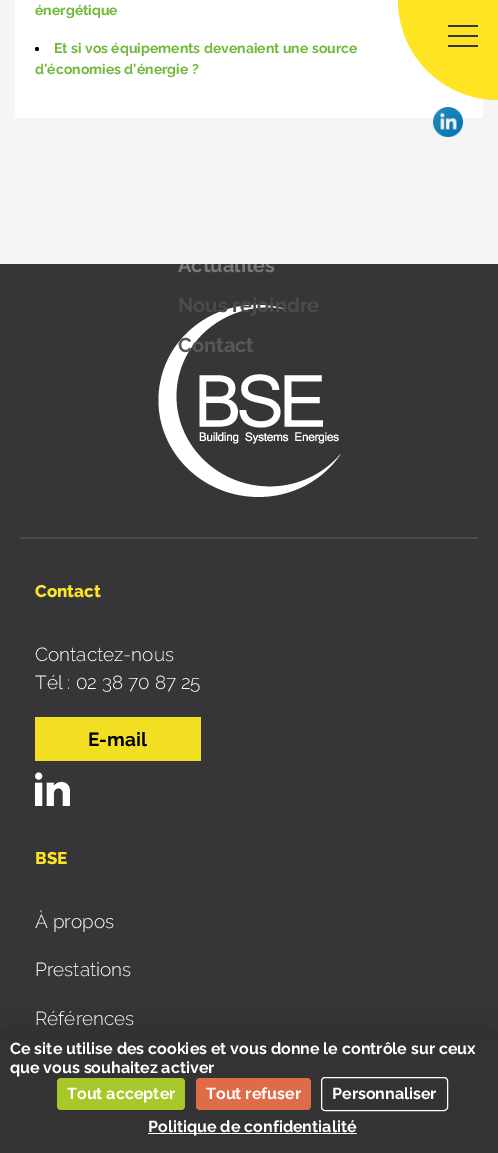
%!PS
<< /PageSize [498 1153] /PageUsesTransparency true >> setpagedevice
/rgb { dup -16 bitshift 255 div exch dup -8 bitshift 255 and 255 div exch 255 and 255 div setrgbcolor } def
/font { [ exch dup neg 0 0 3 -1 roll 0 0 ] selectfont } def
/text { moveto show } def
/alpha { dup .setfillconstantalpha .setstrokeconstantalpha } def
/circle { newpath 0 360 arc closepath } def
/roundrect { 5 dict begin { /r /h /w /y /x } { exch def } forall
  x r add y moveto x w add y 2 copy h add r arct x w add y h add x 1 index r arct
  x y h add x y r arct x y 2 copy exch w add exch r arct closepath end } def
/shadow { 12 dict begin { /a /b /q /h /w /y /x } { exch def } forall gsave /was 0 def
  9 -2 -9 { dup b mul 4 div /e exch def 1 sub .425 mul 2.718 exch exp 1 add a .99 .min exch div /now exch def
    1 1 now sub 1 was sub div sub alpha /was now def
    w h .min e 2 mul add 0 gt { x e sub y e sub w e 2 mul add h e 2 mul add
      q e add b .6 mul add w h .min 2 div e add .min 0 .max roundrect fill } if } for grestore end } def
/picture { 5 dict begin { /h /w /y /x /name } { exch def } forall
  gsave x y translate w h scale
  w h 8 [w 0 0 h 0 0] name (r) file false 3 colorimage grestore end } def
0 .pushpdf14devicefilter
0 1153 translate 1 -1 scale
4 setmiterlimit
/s1 { /Raleway-Bold 20 font 16#79787A rgb } def
/s2 { /Raleway-Bold 14 font 16#70B93A rgb } def
/s3 { /Raleway-Bold 20 font 16#4B4A4C rgb } def
/s4 { /Raleway-Bold 20 font 16#595859 rgb } def
/s5 { /Raleway-ExtraBold 17 font 16#FEE423 rgb } def
/s6 { /Raleway-Light 19 font 16#FFFFFF rgb } def
/s7 { /Raleway-Bold 19 font 16#000000 rgb } def
/s8 { /Raleway-Bold 16 font 16#FFFFFF rgb } def
16#363537 rgb
0 0 498 1153 rectfill
s1
(Actualités) 178 272 text
16#F5F5F5 rgb
0 0 498 264 rectfill
16#FFFFFF rgb
15 0 468 118 rectfill
s2
(énergétique) 35 15 text
16#000000 rgb
37 49 2 circle fill
s2
(Et si vos équipements devenaient une source) 54 53 text
(d’économies d’énergie ?) 35 74 text
(pic1.raw) 433 107 30 30 picture
16#FEE423 rgb
498 0 100 circle fill
16#363537 rgb
448 35 30 2 rectfill
448 25 30 2 rectfill
448 45 30 2 rectfill
(pic2.raw) 158 304 183 193 picture
s3
(Nous rejoindre) 178 312 text
s4
(Contact) 178 352 text
16#4B494C rgb
20 537 458 2 rectfill
s5
(Contact) 35 597 text
s6
(Contactez-nous) 35 661 text
(Tél : 02 38 70 87 25) 35 689 text
16#F2DF21 rgb
35 717 166 44 rectfill
s7
(E-mail) 88 746 text
(pic3.raw) 35 772 35 34 picture
s5
(BSE) 35 864 text
s6
(À propos) 35 928 text
(Prestations) 35 976 text
(Références) 35 1025 text
16#000000 rgb
0 1048 498 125 0 30 0.25 shadow
16#333333 rgb
0 1036 498 117 rectfill
s8
(Ce site utilise des cookies et vous donne le contrôle sur ceux) 10 1054 text
(que vous souhaitez activer) 10 1073 text
16#A8C72A rgb
57 1078 128 32 4 roundrect fill
s8
(Tout accepter) 67 1099 text
16#DE6C49 rgb
196 1078 115 32 4 roundrect fill
s8
(Tout refuser) 206 1099 text
321.5 1077.5 126 33 3.5 roundrect stroke
(Personnaliser) 332 1099 text
148 1133 209 1 rectfill
(Politique de confidentialité) 148 1132 text
.poppdf14devicefilter showpage
